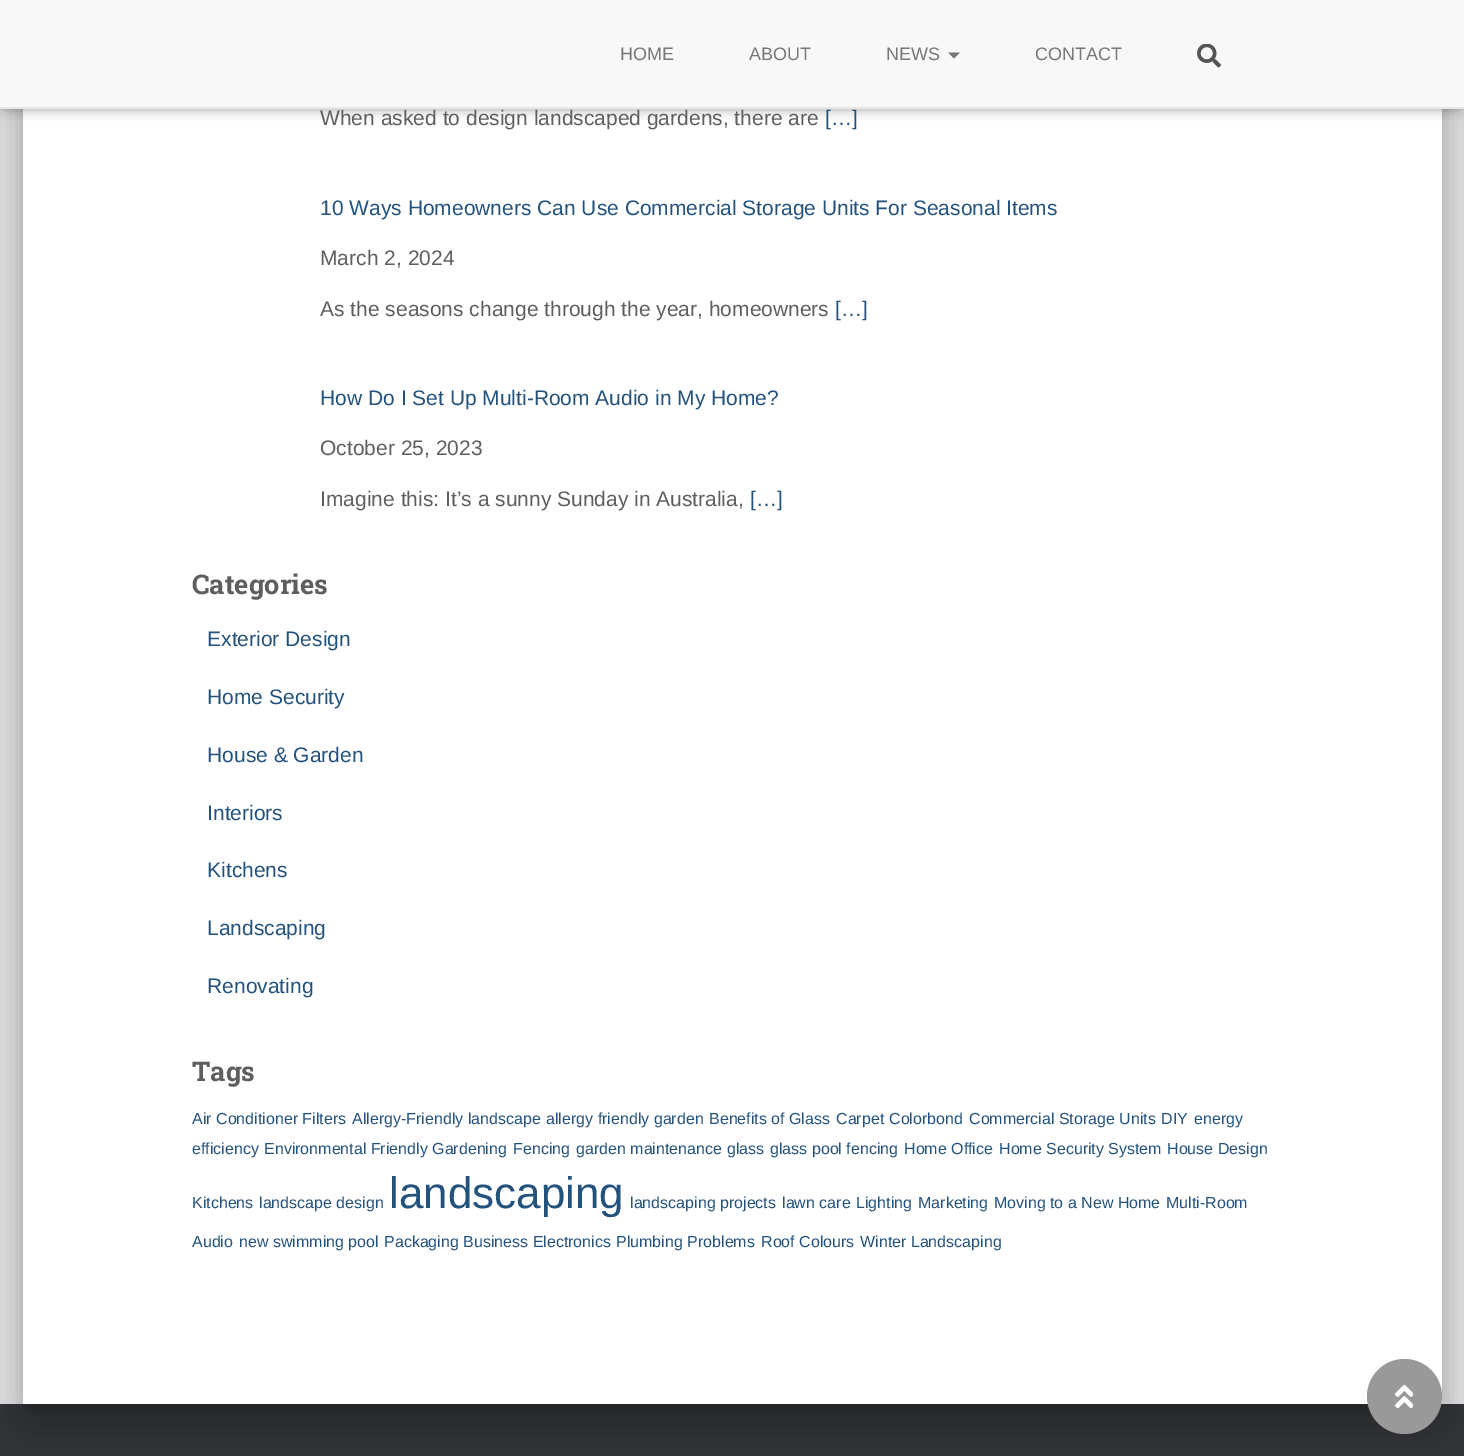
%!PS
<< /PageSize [1464 1456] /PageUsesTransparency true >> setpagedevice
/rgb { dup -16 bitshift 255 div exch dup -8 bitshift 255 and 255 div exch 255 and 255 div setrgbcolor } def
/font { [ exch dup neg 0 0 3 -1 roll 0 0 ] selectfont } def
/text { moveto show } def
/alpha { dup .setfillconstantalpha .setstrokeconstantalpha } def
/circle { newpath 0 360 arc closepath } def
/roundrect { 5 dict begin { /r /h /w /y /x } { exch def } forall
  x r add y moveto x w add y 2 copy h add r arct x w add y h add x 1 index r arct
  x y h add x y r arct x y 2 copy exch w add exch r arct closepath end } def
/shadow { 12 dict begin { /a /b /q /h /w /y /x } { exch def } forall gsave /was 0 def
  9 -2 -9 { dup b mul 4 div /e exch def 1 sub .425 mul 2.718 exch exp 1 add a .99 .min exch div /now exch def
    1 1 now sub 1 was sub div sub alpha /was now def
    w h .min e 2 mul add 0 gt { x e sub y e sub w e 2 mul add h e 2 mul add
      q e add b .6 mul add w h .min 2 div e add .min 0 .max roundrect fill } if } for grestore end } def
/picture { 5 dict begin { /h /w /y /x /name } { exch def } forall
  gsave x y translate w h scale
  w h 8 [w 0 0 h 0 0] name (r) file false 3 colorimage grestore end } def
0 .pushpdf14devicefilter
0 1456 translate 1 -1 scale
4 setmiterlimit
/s1 { /LiberationSans-Regular 18 font 16#777777 rgb } def
/s2 { /LiberationSans-Regular 21 font 16#5E5E5E rgb } def
/s3 { /LiberationSans-Regular 21 font 16#23527C rgb } def
/s4 { /RobotoSlab-Bold 27 font 16#5E5E5E rgb } def
/s5 { /LiberationSans-Regular 16 font 16#23527C rgb } def
/s6 { /LiberationSans-Regular 44 font 16#23527C rgb } def
16#E5E5E5 rgb
0 0 1464 1456 rectfill
16#323437 rgb
0 1404 1464 52 rectfill
16#000000 rgb
30 -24 1404 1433 1.5 7.5 0.2 shadow
15 -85 1434 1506 17 22.5 0.12 shadow
20 -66 1425 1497 12 18 0.14 shadow
16#FFFFFF rgb
23 109 1419 1295 rectfill
16#000000 rgb
3 9 1458 102 0 4 0.1 shadow
0 2 1464 108 0 7.5 0.12 shadow
9 11 1446 90 0 7.5 0.42 shadow
16#F8F8F8 rgb
0 0 1464 107 rectfill
16#E7E7E7 rgb
0 107 1464 2 rectfill
s1
(HOME) 620 60 text
(ABOUT) 749 60 text
(NEWS) 886 60 text
948 52.5 moveto 960 52.5 lineto 954 58.5 lineto closepath fill
(CONTACT) 1035 60 text
(pic1.raw) 1197 44 24 24 picture
s2
(When asked to design landscaped gardens, there are) 320 125 text
s3
([…]) 825 125 text
(10 Ways Homeowners Can Use Commercial Storage Units For Seasonal Items) 320 215 text
s2
(March 2, 2024) 320 265 text
(As the seasons change through the year, homeowners) 320 316 text
s3
([…]) 835 316 text
(How Do I Set Up Multi-Room Audio in My Home?) 320 405 text
s2
(October 25, 2023) 320 455 text
(Imagine this: It’s a sunny Sunday in Australia,) 320 506 text
s3
([…]) 750 506 text
s4
(Categories) 192 594 text
s3
(Exterior Design) 207 646 text
(Home Security) 207 704 text
(House & Garden) 207 762 text
(Interiors) 207 820 text
(Kitchens) 207 877 text
(Landscaping) 207 935 text
(Renovating) 207 993 text
s4
(Tags) 192 1081 text
s5
(Air Conditioner Filters) 192 1124 text
(Allergy-Friendly landscape) 352 1124 text
(allergy friendly garden) 546 1124 text
(Benefits of Glass) 709 1124 text
(Carpet) 836 1124 text
(Colorbond) 889 1124 text
(Commercial Storage Units) 969 1124 text
(DIY) 1161 1124 text
(energy) 1194 1124 text
(efficiency) 192 1154 text
(Environmental Friendly Gardening) 264 1154 text
(Fencing) 513 1154 text
(garden maintenance) 576 1154 text
(glass) 727 1154 text
(glass pool fencing) 770 1154 text
(Home Office) 904 1154 text
(Home Security System) 999 1154 text
(House Design) 1167 1154 text
(Kitchens) 192 1208 text
(landscape design) 259 1208 text
s6
(landscaping) 389 1208 text
s5
(landscaping projects) 630 1208 text
(lawn care) 782 1208 text
(Lighting) 856 1208 text
(Marketing) 918 1208 text
(Moving to a New Home) 994 1208 text
(Multi-Room) 1166 1208 text
(Audio) 192 1247 text
(new swimming pool) 239 1247 text
(Packaging Business Electronics) 384 1247 text
(Plumbing Problems) 616 1247 text
(Roof Colours) 761 1247 text
(Winter Landscaping) 860 1247 text
16#999999 rgb
1404.5 1396.5 37.5 circle fill
(pic2.raw) 1395 1384 18 25 picture
.poppdf14devicefilter showpage
